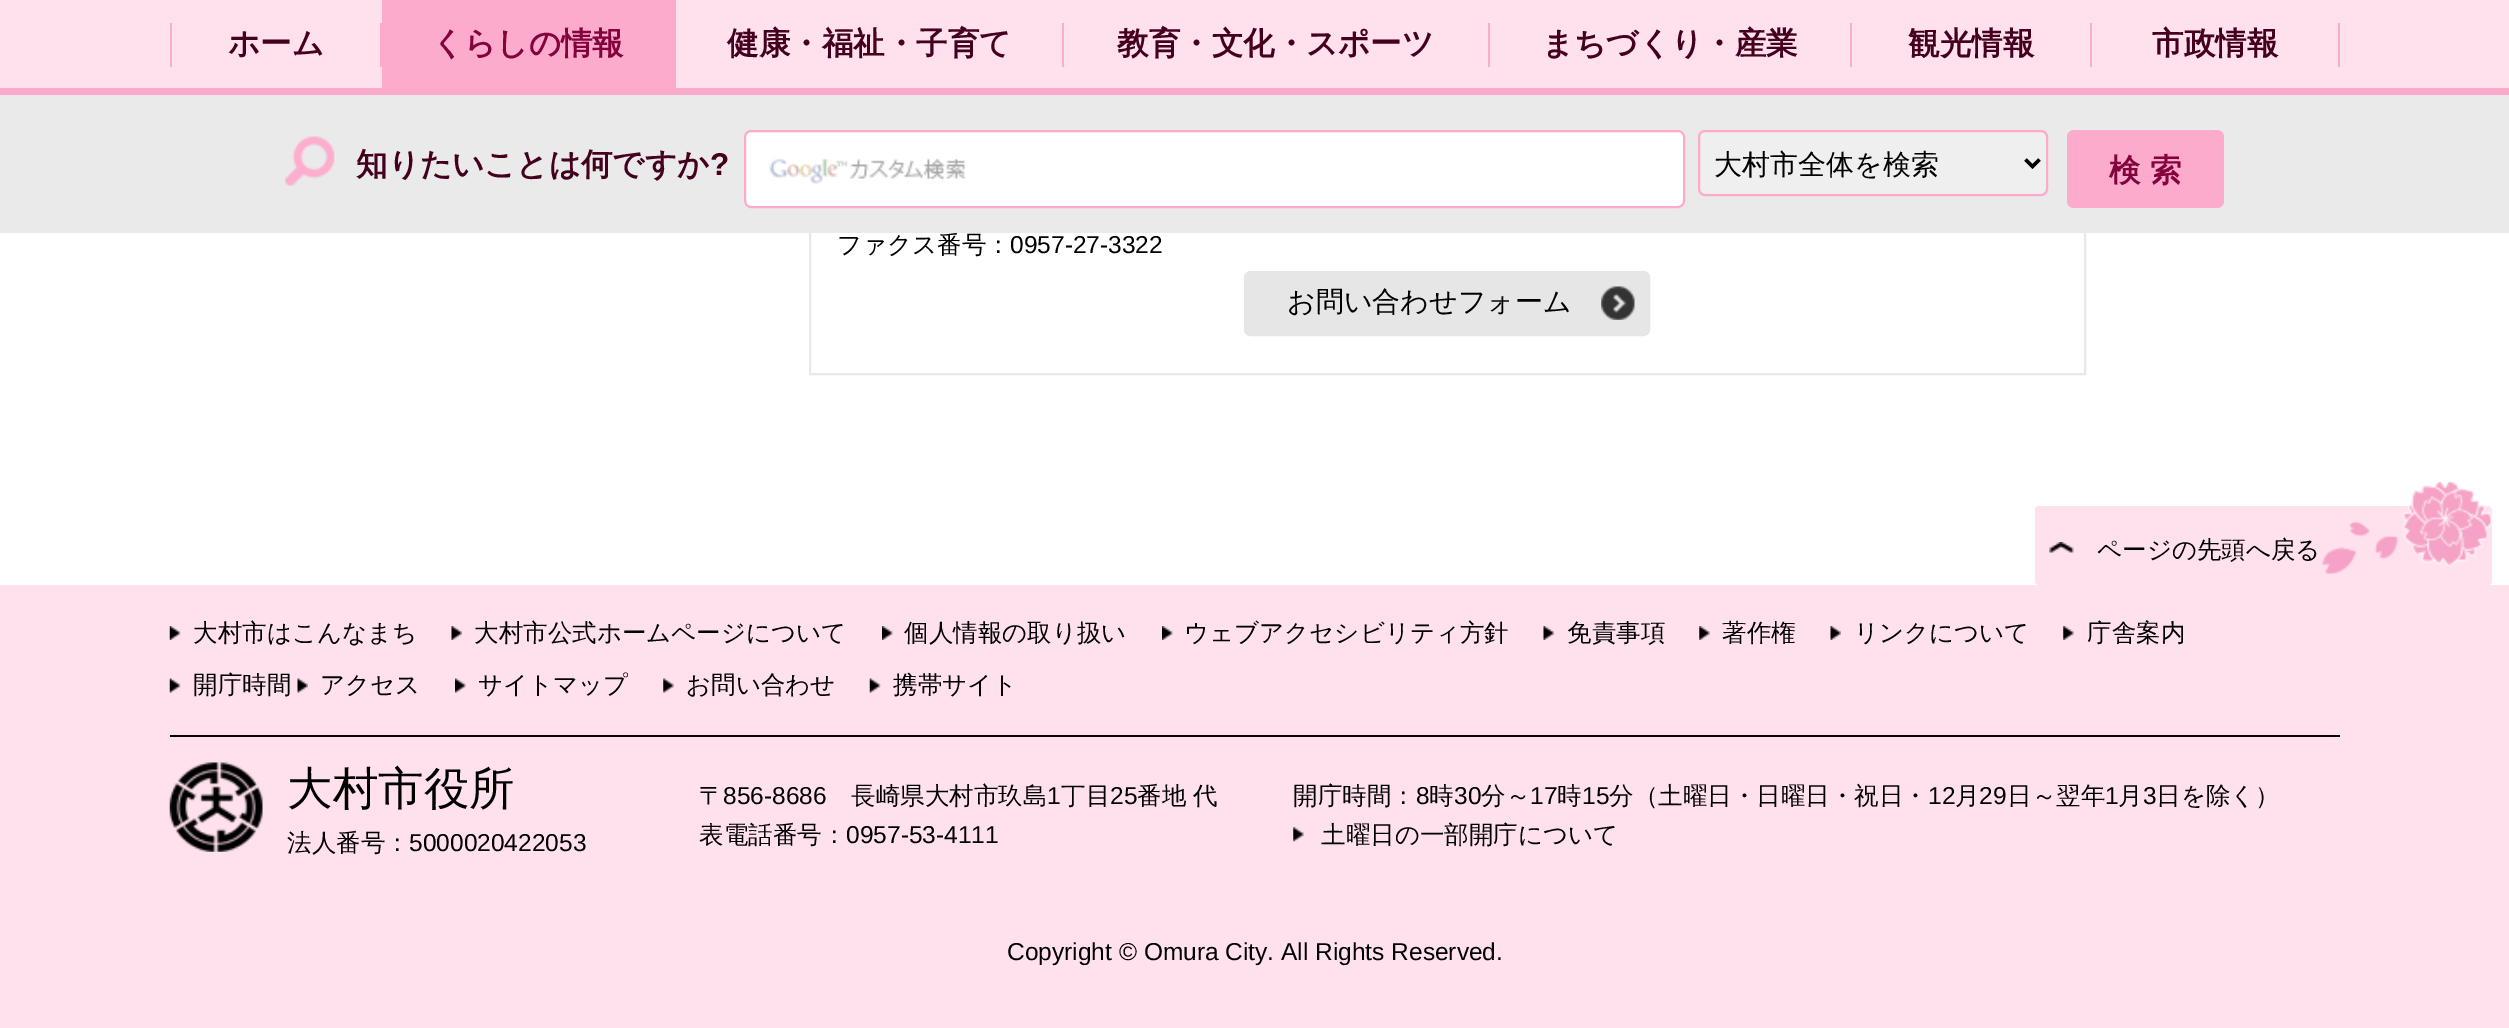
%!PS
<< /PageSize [2509 1028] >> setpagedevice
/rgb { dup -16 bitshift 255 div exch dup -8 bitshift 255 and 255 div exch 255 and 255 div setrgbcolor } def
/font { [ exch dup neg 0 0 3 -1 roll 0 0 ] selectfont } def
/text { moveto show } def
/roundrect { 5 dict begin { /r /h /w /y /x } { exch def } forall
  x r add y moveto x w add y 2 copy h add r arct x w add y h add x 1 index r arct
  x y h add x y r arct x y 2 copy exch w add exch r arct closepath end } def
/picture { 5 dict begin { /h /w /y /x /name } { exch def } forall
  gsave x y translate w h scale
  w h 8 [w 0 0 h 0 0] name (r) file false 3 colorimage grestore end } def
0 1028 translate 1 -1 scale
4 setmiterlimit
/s1 { /WenQuanYiZenHei-Bold 31.5 font 16#44001E rgb } def
/s2 { /WenQuanYiZenHei-Bold 31.5 font 16#83033C rgb } def
/s3 { /WenQuanYiZenHei-Medium 24.5 font 16#000000 rgb } def
/s4 { /LiberationSans-Bold 31.5 font 16#44001E rgb } def
/s5 { /WenQuanYiZenHei-Medium 28 font 16#000000 rgb } def
/s6 { /LiberationSans-Regular 24.5 font 16#000000 rgb } def
/s7 { /WenQuanYiZenHei-Medium 45.5 font 16#000000 rgb } def
16#FFFFFF rgb
0 0 2509 1028 rectfill
16#E9E9E9 rgb
2 setlinewidth
810 -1 1275 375 rectstroke
16#FFE1EE rgb
0 0 2509 88 rectfill
16#FDABCD rgb
170 23 2 44 rectfill
s1
(ホーム) 228 54 text
16#FDABCD rgb
380 23 2 44 rectfill
382 0 294 88 rectfill
s2
(くらしの情報) 432 54 text
s1
(健康・福祉・子育て) 727 54 text
16#FDABCD rgb
1062 23 2 44 rectfill
s1
(教育・文化・スポーツ) 1117 54 text
16#FDABCD rgb
1488 23 2 44 rectfill
s1
(まちづくり・産業) 1542 54 text
16#FDABCD rgb
1850 23 2 44 rectfill
s1
(観光情報) 1908 54 text
16#FDABCD rgb
2090 23 2 44 rectfill
s1
(市政情報) 2152 54 text
16#FDABCD rgb
2338 23 2 44 rectfill
s3
(ファクス番号：) 837 253 text
16#EAEAEA rgb
0 95 2509 138 rectfill
16#FDABCD rgb
0 88 2509 7 rectfill
(pic1.raw) 285 136 50 50 picture
s1
(知りたいことは何ですか) 356 175 text
s4
(?) 710 175 text
16#FFFFFF rgb
744 130 941 78 7 roundrect fill
(pic2.raw) 769 158 197 26 picture
16#FDABCD rgb
745 131 939 76 6 roundrect stroke
16#EFEFEF rgb
1699 131 348 64 6 roundrect gsave fill grestore
16#FDABCD rgb
stroke
16#000000 rgb
3.5 setlinewidth
2025.5 159.5 moveto 2032.5 166.5 lineto 2039.5 159.5 lineto stroke
s5
(大村市全体を検索) 1714 174 text
16#FDABCD rgb
2067 130 157 78 7 roundrect fill
/WenQuanYiZenHei-Bold 31.5 font
16#83033C rgb
2109 181 moveto 9 0 (検索) ashow
s6
(0957-27-3322) 1010 253 text
16#E6E6E6 rgb
1244 271 406 65 7 roundrect fill
(pic3.raw) 1601 286 34 34 picture
2 setlinewidth
1245 272 404 63 6 roundrect stroke
s5
(お問い合わせフォーム) 1287 311 text
16#FFE1EE rgb
2035 506 457 79 4 roundrect fill
(pic4.raw) 2049 542 25 11 picture
s3
(ページの先頭へ戻る) 2097 558 text
(pic5.raw) 2322 481 170 93 picture
16#FFE1EE rgb
0 585 2509 443 rectfill
(pic6.raw) 169 626 12 14 picture
s3
(大村市はこんなまち) 193 641 text
(pic7.raw) 451 626 11 14 picture
(大村市公式ホームページについて) 474 641 text
(pic8.raw) 882 626 11 14 picture
(個人情報の取り扱い) 904 641 text
(pic8.raw) 1162 626 11 14 picture
(ウェブアクセシビリティ方針) 1184 641 text
(pic7.raw) 1543 626 11 14 picture
(免責事項) 1567 641 text
(pic9.raw) 1699 626 11 14 picture
(著作権) 1722 641 text
(pic7.raw) 1830 626 11 14 picture
(リンクについて) 1854 641 text
(pic9.raw) 2063 626 11 14 picture
(庁舎案内) 2087 641 text
(pic10.raw) 169 678 12 15 picture
(開庁時間) 193 693 text
(pic11.raw) 297 678 11 15 picture
(アクセス) 320 693 text
(pic12.raw) 455 678 11 15 picture
(サイトマップ) 478 693 text
(pic13.raw) 663 678 11 15 picture
(お問い合わせ) 686 693 text
(pic14.raw) 869 678 12 15 picture
(携帯サイト) 893 693 text
170 735 2170 2 rectfill
(pic15.raw) 169 762 94 90 picture
s7
(大村市役所) 287 804 text
s3
(法人番号：) 287 851 text
s6
(5000020422053) 409 851 text
s3
(〒) 699 804 text
s6
(856-8686) 723 804 text
s3
(長崎県大村市玖島) 851 804 text
s6
(1) 1047 804 text
s3
(丁目) 1061 804 text
s6
(25) 1110 804 text
s3
(番地) 1137 804 text
(代) 1193 804 text
(表電話番号：) 699 843 text
s6
(0957-53-4111) 846 843 text
s3
(開庁時間：) 1293 804 text
s6
(8) 1416 804 text
s3
(時) 1429 804 text
s6
(30) 1454 804 text
s3
(分～) 1481 804 text
s6
(17) 1530 804 text
s3
(時) 1557 804 text
s6
(15) 1582 804 text
s3
(分（土曜日・日曜日・祝日・) 1609 804 text
s6
(12) 1928 804 text
s3
(月) 1955 804 text
s6
(29) 1979 804 text
s3
(日～翌年) 2007 804 text
s6
(1) 2105 804 text
s3
(月) 2118 804 text
s6
(3) 2143 804 text
s3
(日を除く）) 2156 804 text
(pic16.raw) 1293 827 11 15 picture
(土曜日の一部開庁について) 1321 843 text
s6
(Copyright © Omura City. All Rights Reserved.) 1007 960 text
showpage
